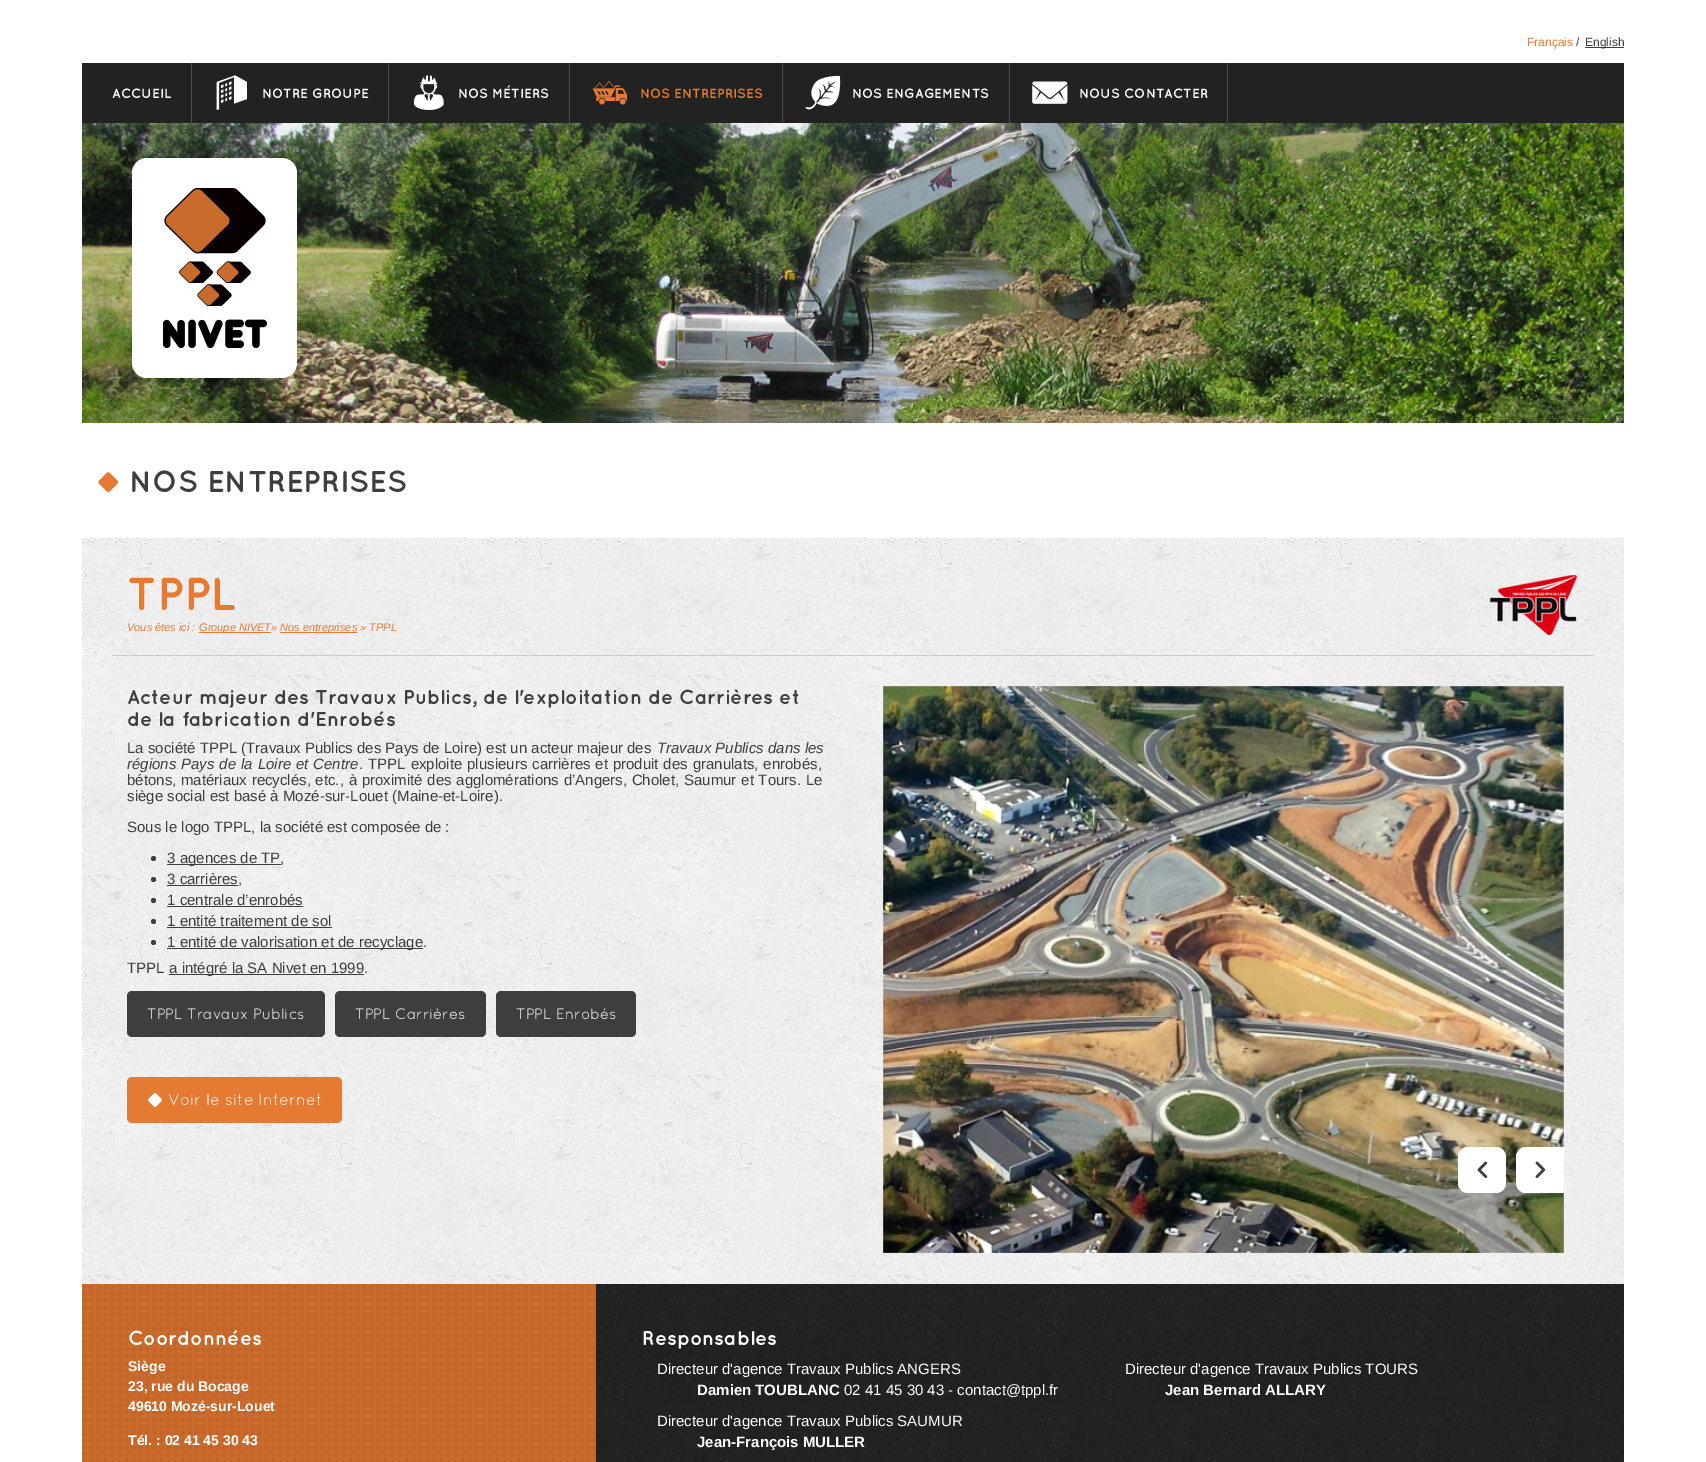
%!PS
<< /PageSize [1706 1462] >> setpagedevice
/rgb { dup -16 bitshift 255 div exch dup -8 bitshift 255 and 255 div exch 255 and 255 div setrgbcolor } def
/font { [ exch dup neg 0 0 3 -1 roll 0 0 ] selectfont } def
/text { moveto show } def
/circle { newpath 0 360 arc closepath } def
/roundrect { 5 dict begin { /r /h /w /y /x } { exch def } forall
  x r add y moveto x w add y 2 copy h add r arct x w add y h add x 1 index r arct
  x y h add x y r arct x y 2 copy exch w add exch r arct closepath end } def
/picture { 5 dict begin { /h /w /y /x /name } { exch def } forall
  gsave x y translate w h scale
  w h 8 [w 0 0 h 0 0] name (r) file false 3 colorimage grestore end } def
0 1462 translate 1 -1 scale
4 setmiterlimit
/s1 { /LiberationSans-Regular 12 font 16#E57A32 rgb } def
/s2 { /LiberationSans-Regular 12 font 16#3E3E3E rgb } def
/s3 { /Quicksand-Bold 13.25 font 16#FFFFFF rgb } def
/s4 { /Quicksand-Bold 13.25 font 16#E57A32 rgb } def
/s5 { /Quicksand-Bold 30 font 16#3E3E3E rgb } def
/s6 { /Quicksand-Bold 46 font 16#E57A32 rgb } def
/s7 { /LiberationSans-Italic 11 font 16#E57A32 rgb } def
/s8 { /Quicksand-Bold 20 font 16#3E3E3E rgb } def
/s9 { /LiberationSans-Regular 15 font 16#3E3E3E rgb } def
/s10 { /LiberationSans-Italic 15 font 16#3E3E3E rgb } def
/s11 { /Quicksand-Regular 15 font 16#FFFFFF rgb } def
/s12 { /Quicksand-Regular 16 font 16#FFFFFF rgb } def
/s13 { /Quicksand-Bold 20 font 16#FFFFFF rgb } def
/s14 { /LiberationSans-Bold 14 font 16#FFFFFF rgb } def
/s15 { /LiberationSans-Regular 15 font 16#FFFFFF rgb } def
/s16 { /LiberationSans-Bold 15 font 16#FFFFFF rgb } def
16#FFFFFF rgb
0 0 1706 1462 rectfill
s1
(Français) 1527 46 text
s2
(/) 1576 46 text
1585 47 39 1 rectfill
(English) 1585 46 text
16#222222 rgb
82 63 1542 60 rectfill
16#4E4D4D rgb
191 63 1 60 rectfill
s3
(ACCUEIL) 112 98 text
16#4E4D4D rgb
388 63 1 60 rectfill
(pic1.raw) 216 75 31 35 picture
s3
(NOTRE GROUPE) 262 98 text
16#4E4D4D rgb
569 63 1 60 rectfill
(pic2.raw) 413 75 31 35 picture
s3
(NOS MÉTIERS) 458 98 text
16#4E4D4D rgb
782 63 1 60 rectfill
(pic3.raw) 592 80 36 25 picture
s4
(NOS ENTREPRISES) 640 98 text
16#4E4D4D rgb
1009 63 1 60 rectfill
(pic4.raw) 805 75 36 35 picture
s3
(NOS ENGAGEMENTS) 852 98 text
16#4E4D4D rgb
1227 63 1 60 rectfill
(pic5.raw) 1032 81 36 23 picture
s3
(NOUS CONTACTER) 1079 98 text
(pic6.raw) 82 123 1542 300 picture
132 158 165 220 15 roundrect fill
(pic7.raw) 163 188 104 160 picture
(pic8.raw) 98 472 21 20 picture
s5
(NOS ENTREPRISES) 129 492 text
(pic9.raw) 82 538 1542 746 picture
16#CCCCCC rgb
112 655 1482 1 rectfill
s6
(TPPL) 127 610 text
(pic10.raw) 1489 575 89 60 picture
s7
(Vous êtes ici :) 127 631 text
199 632 72 1 rectfill
(Groupe NIVET») 199 631 text
280 632 77 1 rectfill
(Nos entreprises » TPPL) 280 631 text
s8
(Acteur majeur des Travaux Publics, de l'exploitation de Carrières et) 127 704 text
(de la fabrication d'Enrobés) 127 726 text
s9
(La société TPPL \(Travaux Publics des Pays de Loire\) est un acteur majeur des) 127 753 text
s10
(Travaux Publics dans les) 657 753 text
127 769 moveto 0.75 0 32 (régions Pays de la Loire et Centre) widthshow
/LiberationSans-Regular 15 font
359 769 moveto 0.75 0 32 (. TPPL exploite plusieurs carrières et produit des granulats, enrobés,) widthshow
127 785 moveto 0.6 0 32 (bétons, matériaux recyclés, etc., à proximité des agglomérations d’Angers, Cholet, Saumur et Tours. Le) widthshow
(siège social est basé à Mozé-sur-Louet \(Maine-et-Loire\).) 127 801 text
(Sous le logo TPPL, la société est composée de :) 127 832 text
153.5 858.5 2.5 circle fill
167 864 114 1 rectfill
(3 agences de TP,) 167 863 text
153.5 879.5 2.5 circle fill
167 885 71 1 rectfill
(3 carrières,) 167 884 text
153.5 900.5 2.5 circle fill
(1 centrale d’enrobés) 167 905 text
167 906 136 1 rectfill
153.5 921.5 2.5 circle fill
(1 entité traitement de sol) 167 926 text
167 927 165 1 rectfill
153.5 942.5 2.5 circle fill
167 948 256 1 rectfill
(1 entité de valorisation et de recyclage.) 167 947 text
(TPPL) 127 973 text
169 974 195 1 rectfill
(a intégré la SA Nivet en 1999.) 169 973 text
127 991 198 46 5 roundrect fill
s11
(TPPL Travaux Publics) 147 1019 text
16#3E3E3E rgb
335 991 151 46 5 roundrect fill
s11
(TPPL Carrières) 355 1019 text
16#3E3E3E rgb
496 991 140 46 5 roundrect fill
s11
(TPPL Enrobés) 516 1019 text
16#E57A32 rgb
127 1077 215 46 5 roundrect fill
(pic11.raw) 148 1093 14 14 picture
s12
(Voir le site Internet) 168 1105 text
(pic12.raw) 883 686 681 567 picture
1458 1147 48 46 10 roundrect fill
(pic13.raw) 1477 1161 11 17 picture
(pic15.raw) 1563 686 1 567 picture
1526 1147 moveto 1564 1147 lineto 1564 1193 lineto 1526 1193 lineto 1520.5 1193 1516 1188.5 1516 1183 curveto 1516 1157 lineto 1516 1151.5 1520.5 1147 1526 1147 curveto closepath fill
(pic14.raw) 1535 1161 11 17 picture
(pic16.raw) 82 1284 514 178 picture
s13
(Coordonnées) 128 1345 text
s14
(Siège) 128 1371 text
(23, rue du Bocage) 128 1391 text
(49610 Mozé-sur-Louet) 128 1411 text
(Tél. : 02 41 45 30 43) 128 1445 text
(pic17.raw) 596 1284 1028 178 picture
s13
(Responsables) 642 1345 text
s15
(Directeur d'agence Travaux Publics ANGERS) 657 1374 text
s16
(Damien TOUBLANC) 697 1395 text
s15
(02 41 45 30 43 - contact@tppl.fr) 844 1395 text
(Directeur d'agence Travaux Publics SAUMUR) 657 1426 text
s16
(Jean-François MULLER) 697 1447 text
s15
(Directeur d'agence Travaux Publics TOURS) 1125 1374 text
s16
(Jean Bernard ALLARY) 1165 1395 text
showpage
